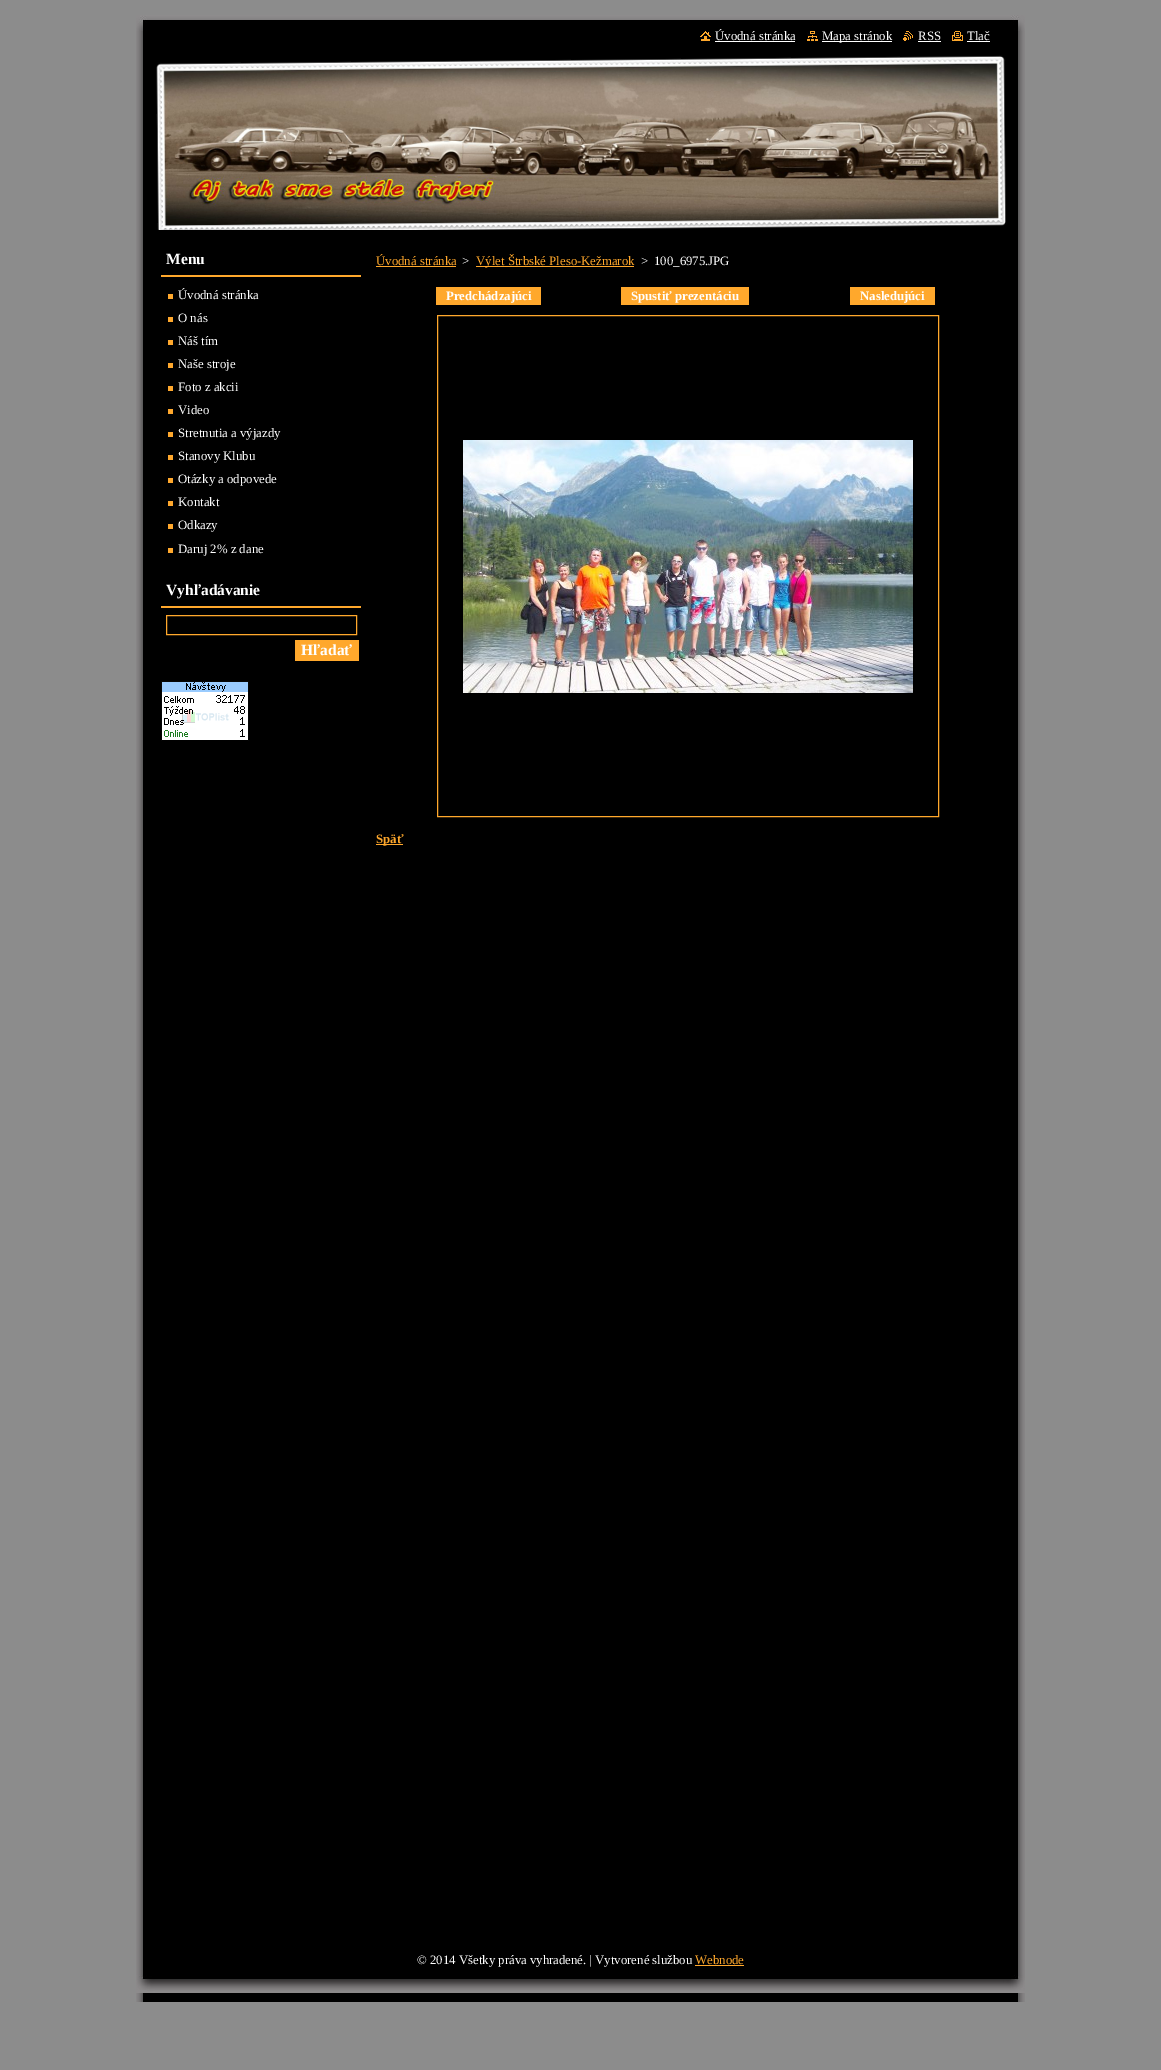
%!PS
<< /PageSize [1161 2070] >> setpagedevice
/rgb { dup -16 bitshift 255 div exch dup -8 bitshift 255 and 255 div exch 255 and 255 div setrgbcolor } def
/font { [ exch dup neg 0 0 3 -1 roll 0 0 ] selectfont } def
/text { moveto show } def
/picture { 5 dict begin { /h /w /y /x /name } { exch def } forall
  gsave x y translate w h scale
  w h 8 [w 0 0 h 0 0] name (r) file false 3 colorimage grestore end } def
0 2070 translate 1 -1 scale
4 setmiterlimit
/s1 { /LiberationSerif-Regular 12.8 font 16#FFFFFF rgb } def
/s2 { /LiberationSerif-Bold 15.5 font 16#FFFFFF rgb } def
/s3 { /LiberationSerif-Regular 12.8 font 16#FFA82C rgb } def
/s4 { /LiberationSerif-Bold 12.8 font 16#FFFFFF rgb } def
/s5 { /LiberationSerif-Bold 12.8 font 16#FFA82C rgb } def
16#8C8C8C rgb
0 0 1161 2070 rectfill
(pic1.raw) 136 31 889 1971 picture
(pic2.raw) 136 15 889 16 picture
(pic3.raw) 700 31 11 10 picture
s1
(Úvodná stránka) 715 40 text
715 41 80 1 rectfill
(pic4.raw) 807 31 11 10 picture
822 41 70 1 rectfill
(Mapa stránok) 822 40 text
(pic5.raw) 903 31 10 10 picture
(RSS) 918 40 text
918 41 23 1 rectfill
(pic6.raw) 952 31 11 10 picture
(Tlač) 967 40 text
967 41 23 1 rectfill
(pic7.raw) 156 55 850 175 picture
16#FFA82C rgb
161 275 200 2 rectfill
s2
(Menu) 166 264 text
s1
(Úvodná stránka) 178 299 text
16#FFA82D rgb
168 294 5 5 rectfill
s1
(O nás) 178 322 text
16#FFA82D rgb
168 317 5 5 rectfill
s1
(Náš tím) 178 345 text
16#FFA82D rgb
168 340 5 5 rectfill
s1
(Naše stroje) 178 368 text
16#FFA82D rgb
168 363 5 5 rectfill
s1
(Foto z akcii) 178 391 text
16#FFA82D rgb
168 386 5 5 rectfill
s1
(Video) 178 414 text
16#FFA82D rgb
168 409 5 5 rectfill
s1
(Stretnutia a výjazdy) 178 437 text
16#FFA82D rgb
168 432 5 5 rectfill
s1
(Stanovy Klubu) 178 460 text
16#FFA82D rgb
168 455 5 5 rectfill
s1
(Otázky a odpovede) 178 483 text
16#FFA82D rgb
168 478 5 5 rectfill
s1
(Kontakt) 178 506 text
16#FFA82D rgb
168 501 5 5 rectfill
s1
(Odkazy) 178 529 text
16#FFA82D rgb
168 524 5 5 rectfill
s1
(Daruj 2% z dane) 178 553 text
16#FFA82D rgb
168 548 5 5 rectfill
16#FFA82C rgb
161 606 200 2 rectfill
s2
(Vyhľadávanie) 166 595 text
16#FFA82C rgb
166.5 615.5 190 19 rectstroke
295 640 64 21 rectfill
s2
(Hľadať) 301 655 text
(pic8.raw) 161 681 88 60 picture
s3
(Úvodná stránka) 376 265 text
376 266 80 1 rectfill
s1
(>) 462 265 text
16#FFA82C rgb
476 266 158 1 rectfill
(Výlet Štrbské Pleso-Kežmarok) 476 265 text
s1
(>) 641 265 text
(100_6975.JPG) 654 265 text
16#FFA82C rgb
436 287 105 18 rectfill
s4
(Predchádzajúci) 446 300 text
16#FFA82C rgb
621 287 128 18 rectfill
s4
(Spustiť prezentáciu) 631 300 text
16#FFA82C rgb
850 287 85 18 rectfill
s4
(Nasledujúci) 860 300 text
16#FFA82C rgb
437.5 315.5 501 501 rectstroke
(pic9.raw) 463 440 450 253 picture
376 844 27 1 rectfill
(Späť) 376 843 text
(pic10.raw) 136 1975 889 18 picture
s1
(© 2014 Všetky práva vyhradené. | Vytvorené službou) 417 1964 text
s3
(Webnode) 695 1964 text
695 1965 49 1 rectfill
showpage
